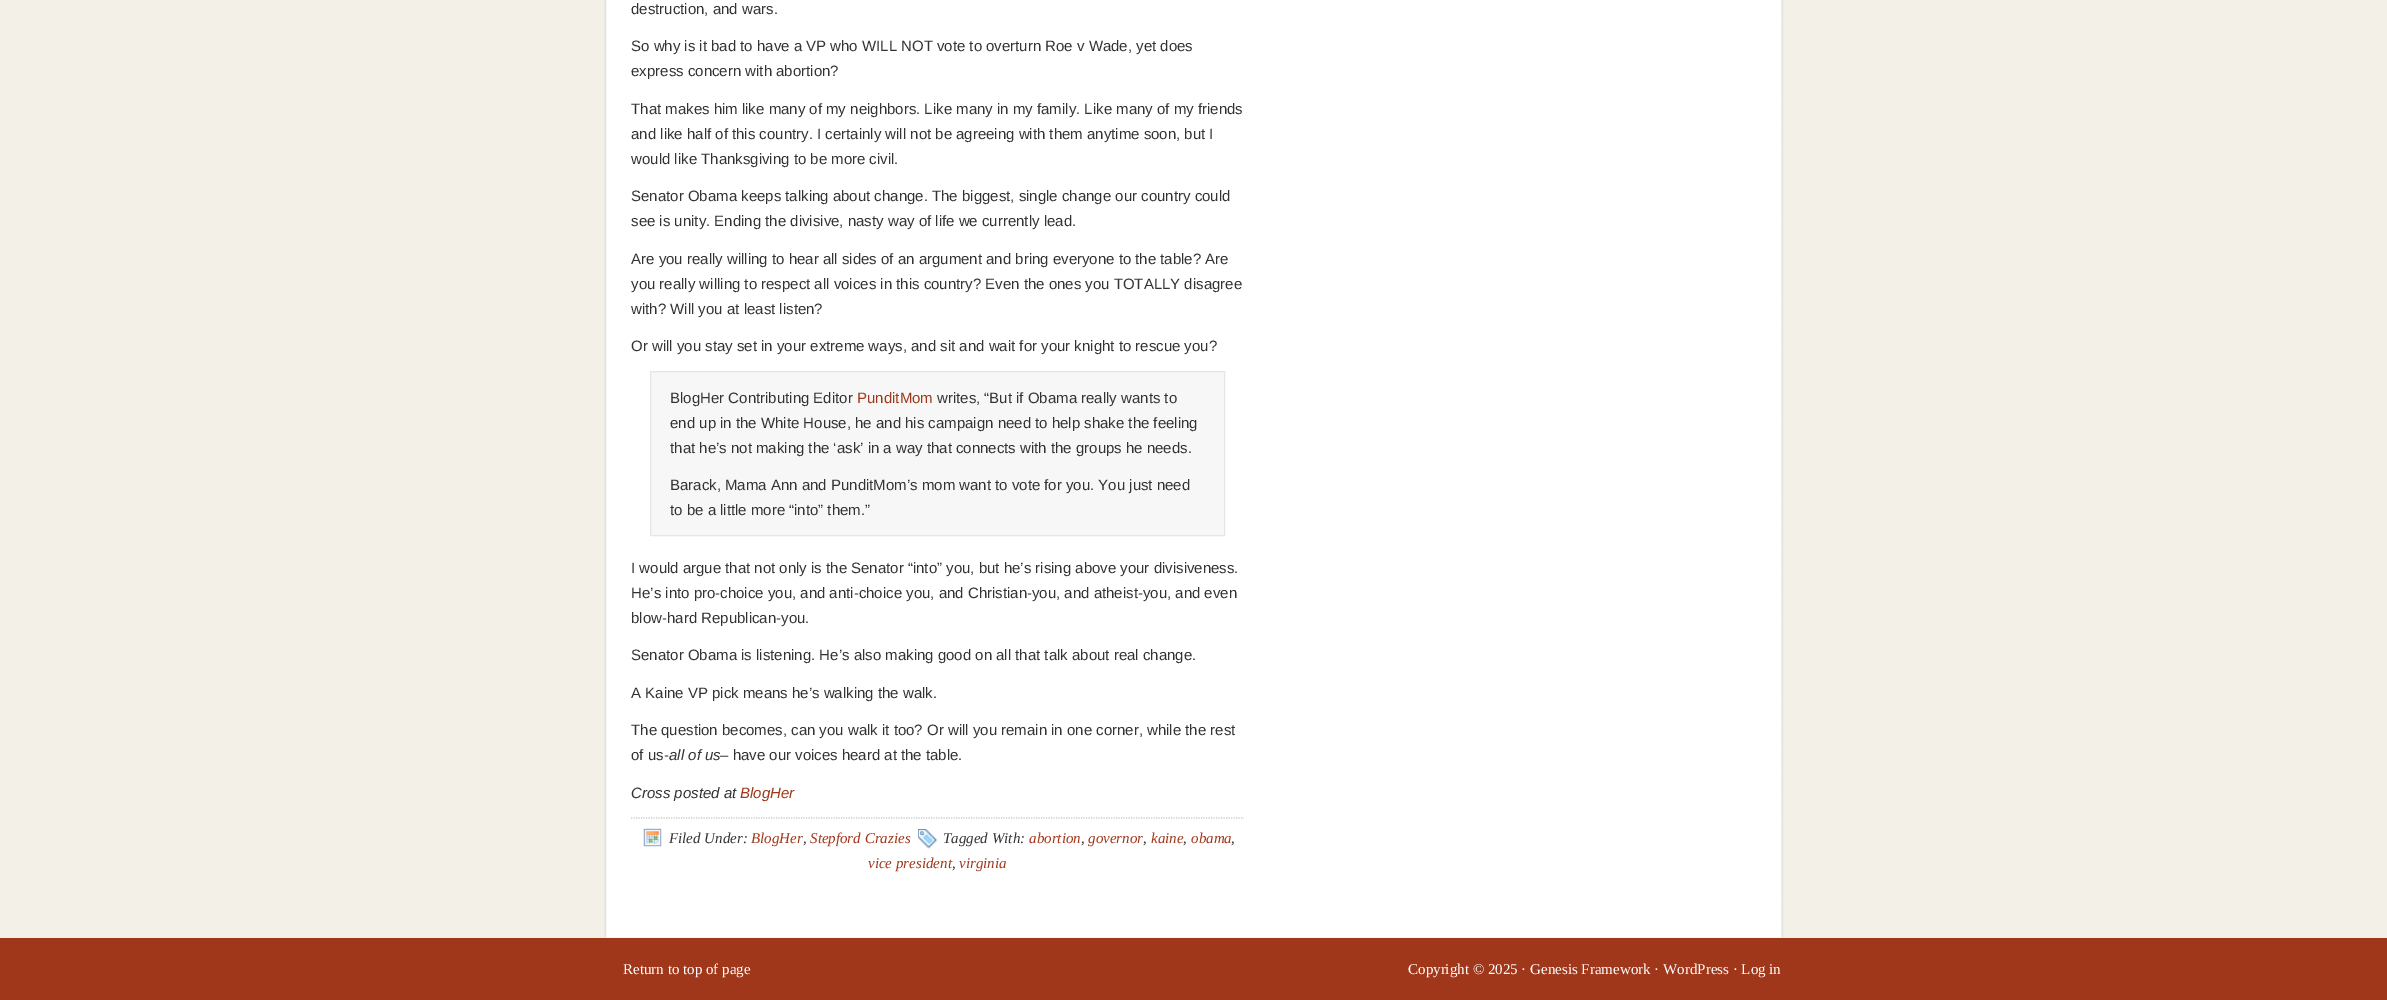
%!PS
<< /PageSize [2387 1000] >> setpagedevice
/rgb { dup -16 bitshift 255 div exch dup -8 bitshift 255 and 255 div exch 255 and 255 div setrgbcolor } def
/font { [ exch dup neg 0 0 3 -1 roll 0 0 ] selectfont } def
/text { moveto show } def
/picture { 5 dict begin { /h /w /y /x /name } { exch def } forall
  gsave x y translate w h scale
  w h 8 [w 0 0 h 0 0] name (r) file false 3 colorimage grestore end } def
0 1000 translate 1 -1 scale
4 setmiterlimit
/s1 { /LiberationSans-Regular 15 font 16#333333 rgb } def
/s2 { /LiberationSans-Regular 15 font 16#A0371A rgb } def
/s3 { /LiberationSans-Italic 15 font 16#333333 rgb } def
/s4 { /LiberationSans-Italic 15 font 16#A0371A rgb } def
/s5 { /LiberationSerif-Italic 15 font 16#333333 rgb } def
/s6 { /LiberationSerif-Italic 15 font 16#A0371A rgb } def
/s7 { /LiberationSerif-Regular 15 font 16#FFFFFF rgb } def
16#F2F0E7 rgb
0 0 2387 1000 rectfill
(pic1.raw) 604 0 1180 938 picture
s1
(destruction, and wars.) 631 14 text
(So why is it bad to have a VP who WILL NOT vote to overturn Roe v Wade, yet does) 631 51 text
(express concern with abortion?) 631 76 text
(That makes him like many of my neighbors. Like many in my family. Like many of my friends) 631 114 text
(and like half of this country. I certainly will not be agreeing with them anytime soon, but I) 631 139 text
(would like Thanksgiving to be more civil.) 631 164 text
(Senator Obama keeps talking about change. The biggest, single change our country could) 631 201 text
(see is unity. Ending the divisive, nasty way of life we currently lead.) 631 226 text
(Are you really willing to hear all sides of an argument and bring everyone to the table? Are) 631 264 text
(you really willing to respect all voices in this country? Even the ones you TOTALLY disagree) 631 289 text
(with? Will you at least listen?) 631 314 text
(Or will you stay set in your extreme ways, and sit and wait for your knight to rescue you?) 631 351 text
16#F7F7F7 rgb
650.5 371.5 moveto 1224.5 371.5 lineto 1224.5 535.5 lineto 650.5 535.5 lineto closepath gsave fill grestore
16#E6E6E6 rgb
stroke
s1
(BlogHer Contributing Editor) 670 403 text
s2
(PunditMom) 857 403 text
s1
(writes, “But if Obama really wants to) 937 403 text
(end up in the White House, he and his campaign need to help shake the feeling) 670 428 text
(that he’s not making the ‘ask’ in a way that connects with the groups he needs.) 670 453 text
(Barack, Mama Ann and PunditMom’s mom want to vote for you. You just need) 670 490 text
(to be a little more “into” them.”) 670 515 text
(I would argue that not only is the Senator “into” you, but he’s rising above your divisiveness.) 631 573 text
(He’s into pro-choice you, and anti-choice you, and Christian-you, and atheist-you, and even) 631 598 text
(blow-hard Republican-you.) 631 623 text
(Senator Obama is listening. He’s also making good on all that talk about real change.) 631 660 text
(A Kaine VP pick means he’s walking the walk.) 631 698 text
(The question becomes, can you walk it too? Or will you remain in one corner, while the rest) 631 735 text
(of us-) 631 760 text
s3
(all of us) 669 760 text
s1
(– have our voices heard at the table.) 720 760 text
s3
(Cross posted at) 631 798 text
s4
(BlogHer) 740 798 text
16#CCCCCC rgb
1.2 setlinewidth
[1.25 1.25] 0 setdash
631 818 moveto 1244 818 lineto stroke
(pic2.raw) 643 828 19 19 picture
s5
(Filed Under:) 669 843 text
s6
(BlogHer) 751 843 text
s5
(,) 803 843 text
s6
(Stepford Crazies) 810 843 text
(pic3.raw) 918 829 20 20 picture
s5
(Tagged With:) 943 843 text
s6
(abortion) 1029 843 text
s5
(,) 1081 843 text
s6
(governor) 1088 843 text
s5
(,) 1143 843 text
s6
(kaine) 1151 843 text
s5
(,) 1183 843 text
s6
(obama) 1191 843 text
s5
(,) 1231 843 text
s6
(vice president) 868 868 text
s5
(,) 952 868 text
s6
(virginia) 959 868 text
0 938 2387 62 rectfill
s7
(Return to top of page) 623 974 text
(Copyright © 2025 · Genesis Framework · WordPress · Log in) 1408 974 text
showpage
